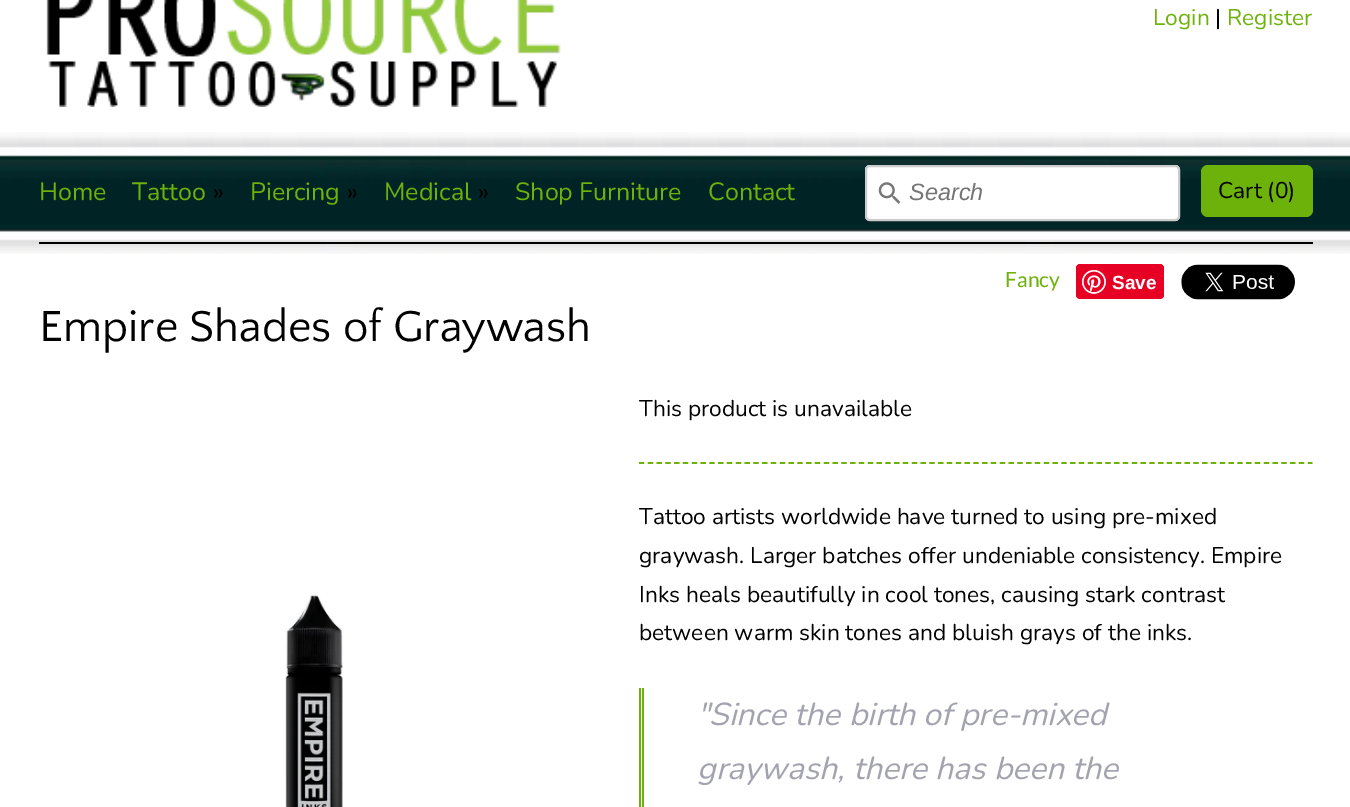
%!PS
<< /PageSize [1350 807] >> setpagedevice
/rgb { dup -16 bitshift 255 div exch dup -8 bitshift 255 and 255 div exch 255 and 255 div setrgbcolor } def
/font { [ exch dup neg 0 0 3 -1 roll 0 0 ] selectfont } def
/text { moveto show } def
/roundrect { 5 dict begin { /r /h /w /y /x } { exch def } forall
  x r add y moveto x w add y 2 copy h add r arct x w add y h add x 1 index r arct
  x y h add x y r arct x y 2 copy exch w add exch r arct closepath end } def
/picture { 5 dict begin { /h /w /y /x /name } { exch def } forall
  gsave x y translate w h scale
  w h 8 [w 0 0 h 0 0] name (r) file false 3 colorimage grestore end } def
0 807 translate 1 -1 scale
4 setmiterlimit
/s1 { /Nunito-Regular 22.75 font 16#6DB20A rgb } def
/s2 { /Nunito-Regular 22.75 font 16#000000 rgb } def
/s3 { /Nunito-Regular 25 font 16#6DB20A rgb } def
/s4 { /Nunito-Regular 25 font 16#000000 rgb } def
/s5 { /LiberationSans-Italic 23.5 font 16#757575 rgb } def
/s6 { /Lato-Regular 21 font 16#6DB20A rgb } def
/s7 { /LiberationSans-Bold 19 font 16#FFFFFF rgb } def
/s8 { /QuattrocentoSans-Regular 45.5 font 16#000000 rgb } def
/s9 { /Nunito-Italic 31.8 font 16#A3A3AF rgb } def
16#FFFFFF rgb
0 0 1350 807 rectfill
(pic1.raw) 0 132 1350 122 picture
(pic2.raw) 46 0 515 107 picture
s1
(Login) 1153 25 text
s2
(|) 1215 25 text
s1
(Register) 1227 25 text
16#000000 rgb
39 242 1274 2 rectfill
s3
(Home) 39 200 text
(Tattoo) 132 200 text
s4
(») 213 200 text
s3
(Piercing) 250 200 text
s4
(») 347 200 text
s3
(Medical) 384 200 text
s4
(») 478 200 text
s3
(Shop Furniture) 515 200 text
(Contact) 708 200 text
16#FFFFFF rgb
865 165 315 56 5 roundrect fill
(pic3.raw) 878 182 23 22 picture
16#CCCCCC rgb
2 setlinewidth
866 166 313 54 4 roundrect stroke
s5
(Search) 909 200 text
16#6DB20A rgb
1201 165 112 52 7 roundrect fill
s2
(Cart \(0\)) 1218 198 text
s6
(Fancy) 1005 287 text
16#E60023 rgb
1076 264 88 35 4 roundrect fill
(pic4.raw) 1082 270 24 24 picture
s7
(Save) 1112 289 text
(pic5.raw) 1181 264 114 36 picture
s8
(Empire Shades of Graywash) 39 341 text
(pic6.raw) 285 594 59 213 picture
s2
(This product is unavailable) 639 416 text
16#6DB20A rgb
1.8 setlinewidth
[5.25 3.55] 0 setdash
639 463 moveto 1312.5 463 lineto stroke
s2
(Tattoo artists worldwide have turned to using pre-mixed) 639 524 text
(graywash. Larger batches offer undeniable consistency. Empire) 639 563 text
(Inks heals beautifully in cool tones, causing stark contrast) 639 602 text
(between warm skin tones and bluish grays of the inks.) 639 640 text
16#6DB20A rgb
639 688 2 119 rectfill
642 688 2 119 rectfill
s9
("Since the birth of pre-mixed) 697 725 text
(graywash, there has been the) 697 779 text
showpage
